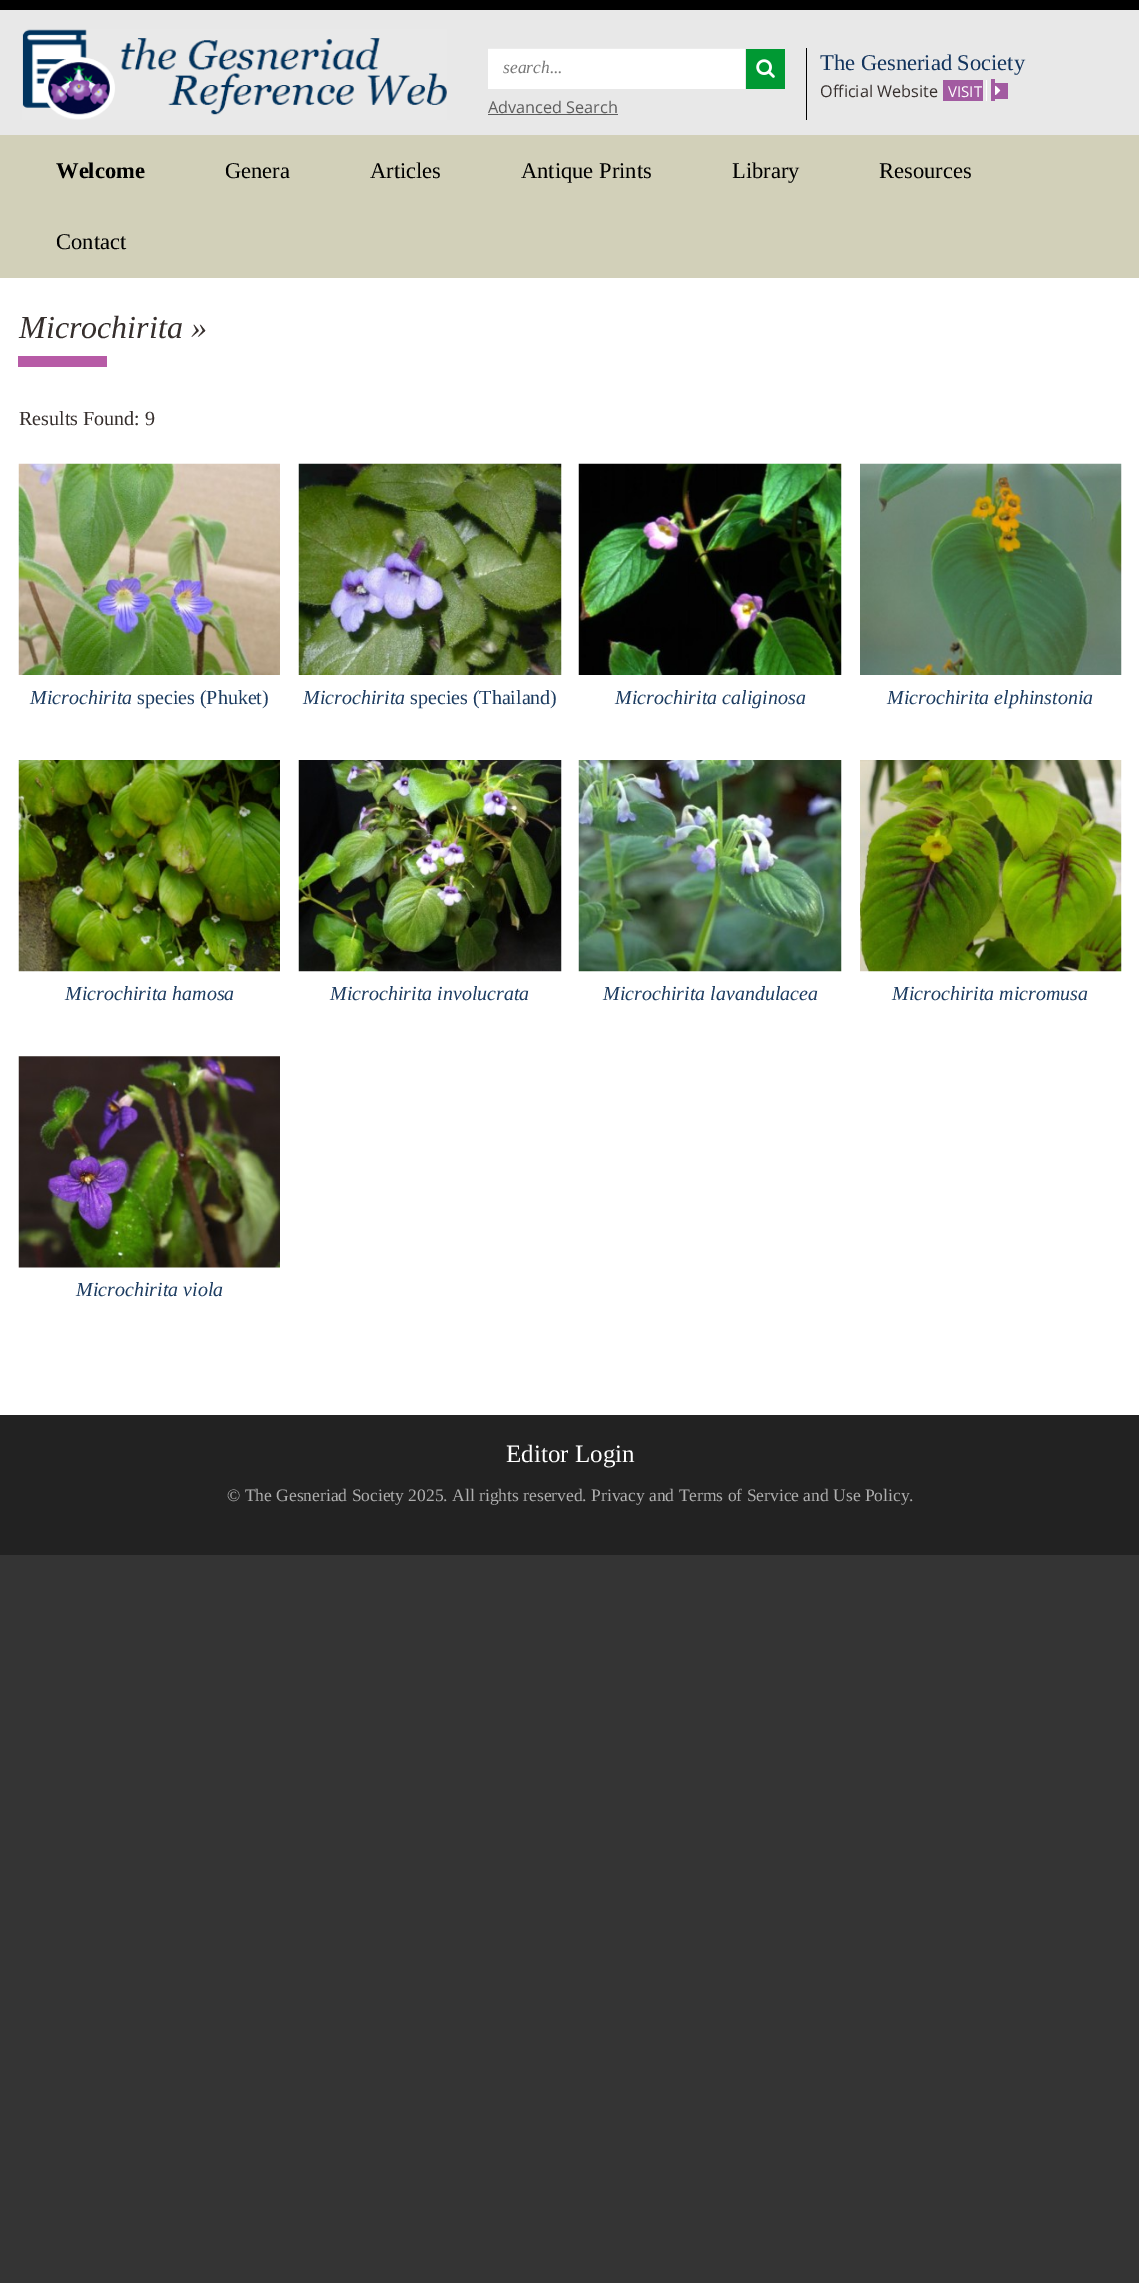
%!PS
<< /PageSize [1139 2283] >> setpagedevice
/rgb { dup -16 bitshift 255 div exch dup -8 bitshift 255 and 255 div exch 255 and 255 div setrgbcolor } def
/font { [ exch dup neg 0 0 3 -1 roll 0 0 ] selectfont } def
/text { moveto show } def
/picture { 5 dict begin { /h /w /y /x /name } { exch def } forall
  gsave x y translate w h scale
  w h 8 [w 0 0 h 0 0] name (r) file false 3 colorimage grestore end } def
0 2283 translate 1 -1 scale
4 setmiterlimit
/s1 { /LiberationSerif-Italic 17.5 font 16#777777 rgb } def
/s2 { /OpenSans-Regular 16.25 font 16#5D5D5D rgb } def
/s3 { /LiberationSerif-Regular 22.5 font 16#12345D rgb } def
/s4 { /OpenSans-Regular 16.25 font 16#362F2D rgb } def
/s5 { /OpenSans-Regular 15 font 16#FFFFFF rgb } def
/s6 { /LiberationSerif-Bold 22.5 font 16#000000 rgb } def
/s7 { /LiberationSerif-Regular 22.5 font 16#000000 rgb } def
/s8 { /LiberationSerif-Italic 32 font 16#362F2D rgb } def
/s9 { /LiberationSerif-Regular 20 font 16#362F2D rgb } def
/s10 { /LiberationSerif-Italic 20 font 16#1C3C61 rgb } def
/s11 { /LiberationSerif-Regular 20 font 16#1C3C61 rgb } def
/s12 { /LiberationSerif-Regular 25 font 16#FFFFFF rgb } def
/s13 { /LiberationSerif-Regular 17.5 font 16#AEAEAE rgb } def
16#343434 rgb
0 0 1139 2283 rectfill
16#E8E8E8 rgb
0 10 1139 125 rectfill
16#000000 rgb
0 0 1139 10 rectfill
(pic1.raw) 22 29 425 91 picture
806 48 1 72 rectfill
16#FFFFFF rgb
488 49 257 40 rectfill
16#ECECEC rgb
488 48 257 1 rectfill
s1
(search...) 503 73 text
16#009933 rgb
746 49 39 40 rectfill
(pic2.raw) 756 59 19 19 picture
s2
(Advanced Search) 488 113 text
488 114 130 1 rectfill
s3
(The Gesneriad Society) 820 70 text
s4
(Official Website) 820 97 text
16#A25BA1 rgb
943 80 40 21 rectfill
991 79 4 22 rectfill
995 83 13 16 rectfill
s5
(VISIT) 948 97 text
986 80 1 21 rectfill
(pic3.raw) 995 85 6 10 picture
16#D2D0B9 rgb
0 135 1139 143 rectfill
s6
(Welcome) 56 178 text
s7
(Genera) 225 178 text
(Articles) 370 178 text
(Antique Prints) 521 178 text
(Library) 732 178 text
(Resources) 879 178 text
(Contact) 56 249 text
16#FFFFFF rgb
0 278 1139 1137 rectfill
16#B75BA6 rgb
18 356 89 11 rectfill
s8
(Microchirita ») 19 338 text
s9
(Results Found: 9) 19 425 text
(pic4.raw) 18 463 262 212 picture
s10
(Microchirita) 30 704 text
s11
(species \(Phuket\)) 137 704 text
(pic5.raw) 298 463 264 212 picture
s10
(Microchirita) 303 704 text
s11
(species \(Thailand\)) 410 704 text
(pic6.raw) 578 463 264 212 picture
s10
(Microchirita caliginosa) 615 704 text
(pic7.raw) 860 463 262 212 picture
(Microchirita elphinstonia) 887 704 text
(pic8.raw) 18 760 262 212 picture
(Microchirita hamosa) 65 1000 text
(pic9.raw) 298 760 264 212 picture
(Microchirita involucrata) 330 1000 text
(pic10.raw) 578 760 264 212 picture
(Microchirita lavandulacea) 603 1000 text
(pic11.raw) 860 760 262 212 picture
(Microchirita micromusa) 892 1000 text
(pic12.raw) 18 1056 262 212 picture
(Microchirita viola) 76 1296 text
16#222222 rgb
0 1415 1139 140 rectfill
s12
(Editor Login) 506 1462 text
s13
(© The Gesneriad Society 2025. All rights reserved. Privacy and Terms of Service and Use Policy.) 227 1501 text
showpage
